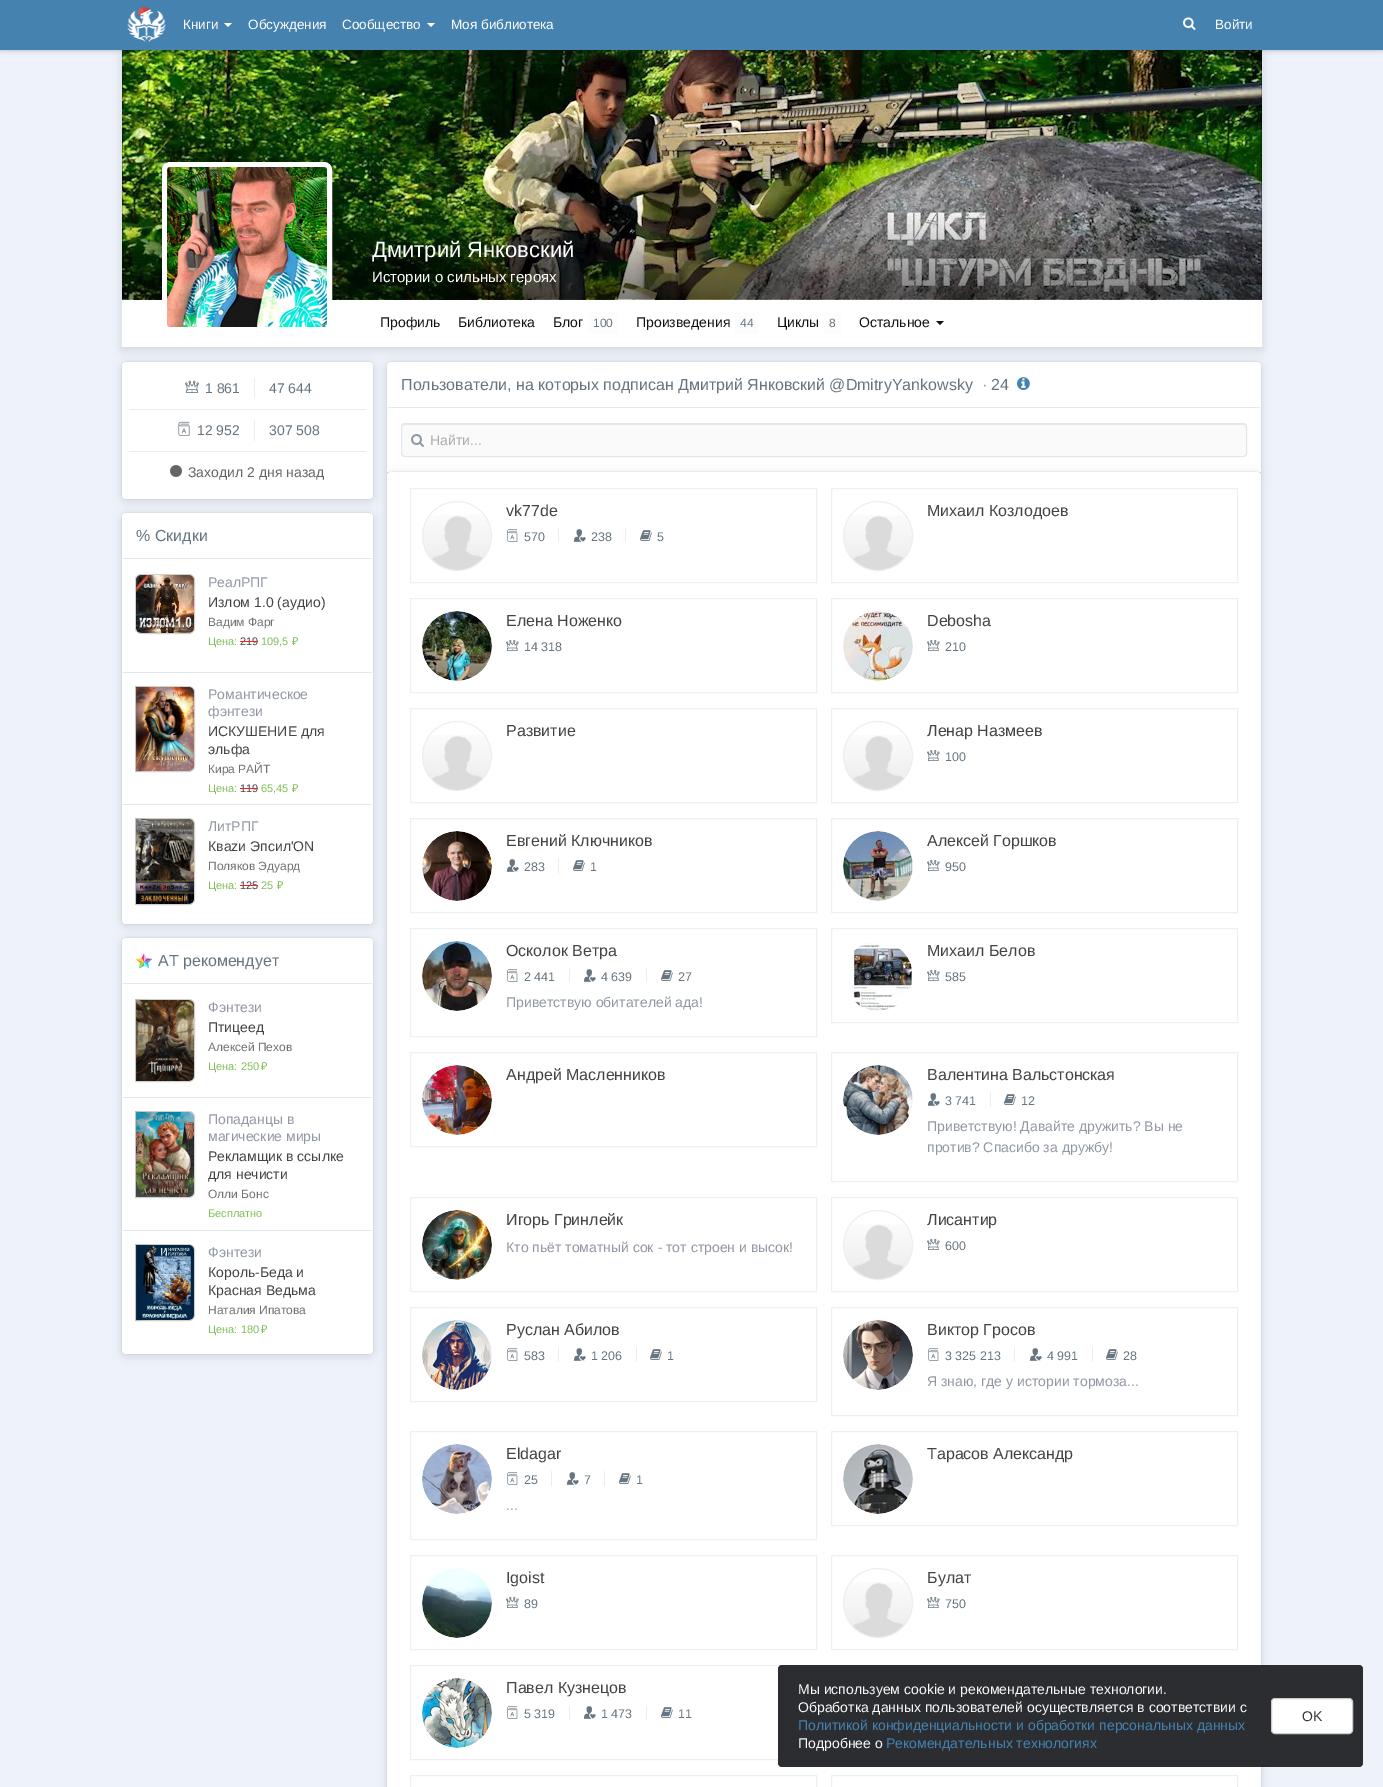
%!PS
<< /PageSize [1383 1787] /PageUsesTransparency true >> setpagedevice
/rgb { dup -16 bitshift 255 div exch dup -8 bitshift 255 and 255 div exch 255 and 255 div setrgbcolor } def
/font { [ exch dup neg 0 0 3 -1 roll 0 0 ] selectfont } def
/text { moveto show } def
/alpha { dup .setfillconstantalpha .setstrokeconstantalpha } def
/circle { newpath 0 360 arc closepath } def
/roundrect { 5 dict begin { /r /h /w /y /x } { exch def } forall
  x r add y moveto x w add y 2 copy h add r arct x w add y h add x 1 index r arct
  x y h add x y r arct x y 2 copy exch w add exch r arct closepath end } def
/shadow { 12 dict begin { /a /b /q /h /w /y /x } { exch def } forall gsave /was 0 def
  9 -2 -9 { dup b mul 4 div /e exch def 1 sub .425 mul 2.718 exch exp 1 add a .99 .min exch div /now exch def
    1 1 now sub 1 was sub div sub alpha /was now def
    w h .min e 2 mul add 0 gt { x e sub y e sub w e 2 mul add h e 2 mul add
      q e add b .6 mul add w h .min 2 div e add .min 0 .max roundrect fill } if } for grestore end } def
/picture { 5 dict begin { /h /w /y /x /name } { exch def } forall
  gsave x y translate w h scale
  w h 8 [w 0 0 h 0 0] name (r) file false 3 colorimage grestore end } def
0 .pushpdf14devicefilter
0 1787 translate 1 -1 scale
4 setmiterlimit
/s1 { /LiberationSans-Regular 13.5 font 16#FFFFFF rgb } def
/s2 { /LiberationSans-Regular 22 font 16#FFFFFF rgb } def
/s3 { /LiberationSans-Regular 15 font 16#FFFFFF rgb } def
/s4 { /LiberationSans-Regular 14 font 16#121212 rgb } def
/s5 { /LiberationSans-Regular 12 font 16#66757F rgb } def
/s6 { /LiberationSans-Regular 14 font 16#66757F rgb } def
/s7 { /LiberationSans-Regular 14 font 16#656565 rgb } def
/s8 { /LiberationSans-Regular 16 font 16#66757F rgb } def
/s9 { /LiberationSans-Regular 14 font 16#9197A3 rgb } def
/s10 { /LiberationSans-Regular 14 font 16#444444 rgb } def
/s11 { /LiberationSans-Regular 12 font 16#717171 rgb } def
/s12 { /LiberationSans-Regular 11 font 16#80BE58 rgb } def
/s13 { /LiberationSans-Regular 11 font 16#444444 rgb } def
/s14 { /NotoSans-Regular 11 font 16#80BE58 rgb } def
/s15 { /LiberationSans-Regular 16 font 16#9197A3 rgb } def
/s16 { /LiberationSans-Regular 14 font 16#AAAAAA rgb } def
/s17 { /LiberationSans-Regular 16 font 16#444444 rgb } def
/s18 { /LiberationSans-Regular 12.5 font 16#66757F rgb } def
/s19 { /LiberationSans-Regular 14 font 16#F9F9F9 rgb } def
/s20 { /LiberationSans-Regular 14 font 16#4582AF rgb } def
/s21 { /LiberationSans-Regular 14 font 16#333333 rgb } def
16#EEF3FB rgb
0 0 1383 1787 rectfill
16#000000 rgb
122 52 1140 298 0 5 0.12 shadow
(pic3.raw) 122 50 1140 250 picture
0.1 alpha
122 50 moveto 1262 50 lineto 1261 51 lineto 123 51 lineto closepath fill
1 alpha
(pic4.raw) 122 210 1140 89 picture
0.25 alpha
1262 50 moveto 1262 300 lineto 1261 299 lineto 1261 51 lineto closepath fill
1262 300 moveto 122 300 lineto 123 299 lineto 1261 299 lineto closepath fill
122 300 moveto 122 50 lineto 123 51 lineto 123 299 lineto closepath fill
1 alpha
0 0 1383 50 0 2.5 0.25 shadow
16#4582AF rgb
0 0 1383 50 rectfill
(pic1.raw) 127 7 39 36 picture
s1
(Книги) 183 29 text
224 23 moveto 232 23 lineto 228 27 lineto closepath fill
(Обсуждения) 248 29 text
(Сообщество) 342 29 text
427 23 moveto 435 23 lineto 431 27 lineto closepath fill
(Моя библиотека) 451 29 text
(pic2.raw) 1183 17 13 13 picture
(Войти) 1215 29 text
s2
(Дмитрий Янковский) 372 257 text
s3
(Истории о сильных героях) 372 282 text
16#DDDDDD rgb
122 347 1140 1 rectfill
16#FFFFFF rgb
122 300 1140 47 rectfill
5 setlinewidth
164.5 164.5 165 165 5.5 roundrect stroke
(pic5.raw) 167 167 160 160 picture
s4
(Профиль) 380 327 text
(Библиотека) 458 327 text
(Блог) 553 327 text
16#FCFCFC rgb
588 312 30 22 2 roundrect fill
s5
(100) 593 327 text
s4
(Произведения) 636 327 text
16#FCFCFC rgb
735 312 24 22 2 roundrect fill
s5
(44) 740 327 text
s4
(Циклы) 777 327 text
16#FCFCFC rgb
824 312 17 22 2 roundrect fill
s5
(8) 829 327 text
s4
(Остальное) 859 327 text
936 321 moveto 944 321 lineto 940 325 lineto closepath fill
16#000000 rgb
122 364 251 137 4 5 0.12 shadow
122 362 251 137 4 0.5 0.12 shadow
16#FFFFFF rgb
122 362 251 137 4 roundrect fill
16#E9EDF8 rgb
129 409 237 1 rectfill
(pic6.raw) 185 380 14 13 picture
s6
(1 861) 205 393 text
16#E9EDF8 rgb
254 378 1 21 rectfill
s6
(47 644) 269 393 text
16#E9EDF8 rgb
129 451 237 1 rectfill
(pic7.raw) 178 421 12 15 picture
s6
(12 952) 197 435 text
16#E9EDF8 rgb
254 420 1 21 rectfill
s6
(307 508) 269 435 text
(pic8.raw) 170 465 12 12 picture
s7
(Заходил 2 дня назад) 188 477 text
16#000000 rgb
122 515 251 411 4 5 0.12 shadow
122 513 251 411 4 0.5 0.12 shadow
16#FFFFFF rgb
122 513 251 411 4 roundrect fill
16#E1E8ED rgb
123 672 249 1 rectfill
123 804 249 1 rectfill
16#000000 rgb
122 940 251 416 4 5 0.12 shadow
122 938 251 416 4 0.5 0.12 shadow
16#FFFFFF rgb
122 938 251 416 4 roundrect fill
16#E1E8ED rgb
123 1097 249 1 rectfill
123 1230 249 1 rectfill
16#000000 rgb
387 364 874 110 4 5 0.12 shadow
387 362 874 110 4 0.5 0.12 shadow
16#FFFFFF rgb
391 362 moveto 1257 362 lineto 1259 362 1261 364 1261 366 curveto 1261 472 lineto 387 472 lineto 387 366 lineto 387 364 389 362 391 362 curveto closepath fill
16#000000 rgb
387 474 874 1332 4 5 0.12 shadow
16#E4EAEC rgb
123 558 249 1 rectfill
s8
(% Скидки) 136 541 text
16#F6F4EE rgb
135 574 60 60 6 roundrect fill
0.15 alpha
16#000000 rgb
1 setlinewidth
135.5 574.5 59 59 5.5 roundrect stroke
1 alpha
(pic9.raw) 136 575 58 58 picture
s9
(РеалРПГ) 208 587 text
s10
(Излом 1.0 \(аудио\)) 208 607 text
s11
(Вадим Фарг) 208 626 text
s12
(Цена:) 208 645 text
s13
(219) 240 645 text
16#FF1D25 rgb
240 641 18 1 rectfill
s12
(109,5) 261 645 text
s14
(₽) 292 645 text
16#F6F4EE rgb
135 686 moveto 189 686 lineto 192.5 686 195 688.5 195 692 curveto 195 766 lineto 195 769.5 192.5 772 189 772 curveto 135 772 lineto closepath fill
0.15 alpha
16#000000 rgb
135.5 686.5 moveto 189 686.5 lineto 192 686.5 194.5 689 194.5 692 curveto 194.5 766 lineto 194.5 769 192 771.5 189 771.5 curveto 135.5 771.5 lineto closepath stroke
1 alpha
(pic10.raw) 136 687 58 84 picture
(pic11.raw) 135 686 18 86 picture
s9
(Романтическое) 208 699 text
(фэнтези) 208 716 text
s10
(ИСКУШЕНИЕ для) 208 736 text
(эльфа) 208 754 text
s11
(Кира РАЙТ) 208 773 text
s12
(Цена:) 208 792 text
s13
(119) 240 792 text
16#FF1D25 rgb
240 788 18 1 rectfill
s12
(65,45) 261 792 text
s14
(₽) 292 792 text
16#F6F4EE rgb
135 818 moveto 189 818 lineto 192.5 818 195 820.5 195 824 curveto 195 899 lineto 195 902.5 192.5 905 189 905 curveto 135 905 lineto closepath fill
0.15 alpha
16#000000 rgb
135.5 818.5 moveto 189 818.5 lineto 192 818.5 194.5 821 194.5 824 curveto 194.5 899 lineto 194.5 902 192 904.5 189 904.5 curveto 135.5 904.5 lineto closepath stroke
1 alpha
(pic12.raw) 136 819 58 85 picture
(pic13.raw) 135 818 17 86 picture
s9
(ЛитРПГ) 208 831 text
s10
(Кваzи Эпсил'ON) 208 851 text
s11
(Поляков Эдуард) 208 870 text
s12
(Цена:) 208 889 text
s13
(125) 240 889 text
16#FF1D25 rgb
240 885 18 1 rectfill
s12
(25) 261 889 text
s14
(₽) 277 889 text
16#E4EAEC rgb
123 983 249 1 rectfill
(pic14.raw) 139 962 5 7 picture
16#FF9811 rgb
140 963 moveto 144 962 lineto 136 959 lineto closepath fill
16#EA348B rgb
144 962 moveto 144 953.5 lineto 141.5 958.5 lineto closepath fill
16#933EC5 rgb
152 959 moveto 146.5 958.5 lineto 144 962 lineto closepath fill
16#F7AED1 rgb
146.5 958.5 moveto 144 953.5 lineto 144 962 lineto closepath fill
16#FFDA44 rgb
141.5 958.5 moveto 136 959 lineto 144 962 lineto closepath fill
16#00D7DF rgb
148 963 moveto 144 962 lineto 149 968.5 lineto closepath fill
16#99EFF2 rgb
144 966 moveto 149 968.5 lineto 144 962 lineto closepath fill
16#7C84E8 rgb
148 963 moveto 152 959 lineto 144 962 lineto closepath fill
16#91DC5A rgb
140 963 moveto 139 968.5 lineto 144 962 lineto closepath fill
s8
(AT рекомендует) 158 966 text
16#F6F4EE rgb
135 999 moveto 189 999 lineto 192.5 999 195 1001.5 195 1005 curveto 195 1076 lineto 195 1079.5 192.5 1082 189 1082 curveto 135 1082 lineto closepath fill
0.15 alpha
16#000000 rgb
135.5 999.5 moveto 189 999.5 lineto 192 999.5 194.5 1002 194.5 1005 curveto 194.5 1076 lineto 194.5 1079 192 1081.5 189 1081.5 curveto 135.5 1081.5 lineto closepath stroke
1 alpha
(pic15.raw) 136 1000 58 81 picture
(pic16.raw) 135 999 15 82 picture
s9
(Фэнтези) 208 1012 text
s10
(Птицеед) 208 1032 text
s11
(Алексей Пехов) 208 1051 text
s12
(Цена: 250) 208 1070 text
s14
(₽) 261 1070 text
16#F6F4EE rgb
135 1111 moveto 189 1111 lineto 192.5 1111 195 1113.5 195 1117 curveto 195 1192 lineto 195 1195.5 192.5 1198 189 1198 curveto 135 1198 lineto closepath fill
0.15 alpha
16#000000 rgb
135.5 1111.5 moveto 189 1111.5 lineto 192 1111.5 194.5 1114 194.5 1117 curveto 194.5 1192 lineto 194.5 1195 192 1197.5 189 1197.5 curveto 135.5 1197.5 lineto closepath stroke
1 alpha
(pic17.raw) 136 1112 58 85 picture
(pic18.raw) 135 1111 17 86 picture
s9
(Попаданцы в) 208 1124 text
(магические миры) 208 1141 text
s10
(Рекламщик в ссылке) 208 1161 text
(для нечисти) 208 1179 text
s11
(Олли Бонс) 208 1198 text
s12
(Бесплатно) 208 1217 text
16#F6F4EE rgb
135 1244 moveto 189 1244 lineto 192.5 1244 195 1246.5 195 1250 curveto 195 1315 lineto 195 1318.5 192.5 1321 189 1321 curveto 135 1321 lineto closepath fill
0.15 alpha
16#000000 rgb
135.5 1244.5 moveto 189 1244.5 lineto 192 1244.5 194.5 1247 194.5 1250 curveto 194.5 1315 lineto 194.5 1318 192 1320.5 189 1320.5 curveto 135.5 1320.5 lineto closepath stroke
1 alpha
(pic19.raw) 136 1245 58 75 picture
(pic20.raw) 135 1244 17 77 picture
s9
(Фэнтези) 208 1257 text
s10
(Король-Беда и) 208 1277 text
(Красная Ведьма) 208 1295 text
s11
(Наталия Ипатова) 208 1314 text
s12
(Цена: 180) 208 1333 text
s14
(₽) 261 1333 text
16#E4EAEC rgb
388 407 872 1 rectfill
s8
(Пользователи, на которых подписан Дмитрий Янковский @DmitryYankowsky) 401 390 text
s15
(·) 982 390 text
s8
(24) 991 390 text
(pic21.raw) 1017 377 13 13 picture
16#FAFAFA rgb
401 423 846 34 4 roundrect fill
16#E7E7E7 rgb
405 425 moveto 1243 425 lineto 1245 425 1246 426 1246 428 curveto 1246 426 1245 424 1243 424 curveto 405 424 lineto 403 424 402 426 402 428 curveto 402 426 403 425 405 425 curveto closepath fill
16#E1E8ED rgb
401.5 423.5 845 33 3.5 roundrect stroke
(pic22.raw) 411 434 13 13 picture
s16
(Найти...) 430 445 text
16#000000 rgb
387 472 874 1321 4 0.5 0.12 shadow
16#FFFFFF rgb
387 472 874 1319 4 roundrect fill
16#ECEFF3 rgb
410.5 488.5 406 94 rectstroke
(pic23.raw) 423 515 68 55 picture
16#EEEEEE rgb
457 536 34.5 circle stroke
s17
(vk77de) 506 516 text
(pic24.raw) 507 529 11 13 picture
s18
(570) 524 541 text
16#E9EDF8 rgb
558 528 1 15 rectfill
(pic25.raw) 573 529 13 13 picture
s18
(238) 591 541 text
16#E9EDF8 rgb
625 528 1 15 rectfill
(pic26.raw) 640 530 12 11 picture
s18
(5) 657 541 text
16#ECEFF3 rgb
831.5 488.5 406 94 rectstroke
(pic27.raw) 844 515 68 55 picture
16#EEEEEE rgb
878 536 34.5 circle stroke
s17
(Михаил Козлодоев) 927 516 text
16#ECEFF3 rgb
410.5 598.5 406 94 rectstroke
(pic28.raw) 422 611 70 70 picture
s17
(Елена Ноженко) 506 626 text
(pic29.raw) 506 640 13 11 picture
s18
(14 318) 524 651 text
16#ECEFF3 rgb
831.5 598.5 406 94 rectstroke
(pic30.raw) 843 611 70 70 picture
s17
(Debosha) 927 626 text
(pic29.raw) 927 640 13 11 picture
s18
(210) 945 651 text
16#ECEFF3 rgb
410.5 708.5 406 94 rectstroke
(pic31.raw) 423 735 68 55 picture
16#EEEEEE rgb
457 756 34.5 circle stroke
s17
(Развитие) 506 736 text
16#ECEFF3 rgb
831.5 708.5 406 94 rectstroke
(pic32.raw) 844 735 68 55 picture
16#EEEEEE rgb
878 756 34.5 circle stroke
s17
(Ленар Назмеев) 927 736 text
(pic29.raw) 927 750 13 11 picture
s18
(100) 945 761 text
16#ECEFF3 rgb
410.5 818.5 406 94 rectstroke
(pic33.raw) 422 831 70 70 picture
s17
(Евгений Ключников) 506 846 text
(pic25.raw) 506 859 13 13 picture
s18
(283) 524 871 text
16#E9EDF8 rgb
558 858 1 15 rectfill
(pic26.raw) 573 860 12 11 picture
s18
(1) 590 871 text
16#ECEFF3 rgb
831.5 818.5 406 94 rectstroke
(pic34.raw) 843 831 70 70 picture
s17
(Алексей Горшков) 927 846 text
(pic29.raw) 927 860 13 11 picture
s18
(950) 945 871 text
16#ECEFF3 rgb
410.5 928.5 406 108 rectstroke
(pic35.raw) 422 941 70 70 picture
s17
(Осколок Ветра) 506 956 text
(pic24.raw) 507 969 11 13 picture
s18
(2 441) 524 981 text
16#E9EDF8 rgb
569 968 1 15 rectfill
(pic25.raw) 583 969 13 13 picture
s18
(4 639) 601 981 text
16#E9EDF8 rgb
646 968 1 15 rectfill
(pic26.raw) 661 970 12 11 picture
s18
(27) 678 981 text
s9
(Приветствую обитателей ада!) 506 1007 text
16#ECEFF3 rgb
831.5 928.5 406 94 rectstroke
(pic36.raw) 851 942 61 69 picture
s17
(Михаил Белов) 927 956 text
(pic29.raw) 927 970 13 11 picture
s18
(585) 945 981 text
16#ECEFF3 rgb
410.5 1052.5 406 94 rectstroke
(pic37.raw) 422 1065 70 70 picture
s17
(Андрей Масленников) 506 1080 text
16#ECEFF3 rgb
831.5 1052.5 406 129 rectstroke
(pic38.raw) 843 1065 70 70 picture
s17
(Валентина Вальстонская) 927 1080 text
(pic25.raw) 927 1093 13 13 picture
s18
(3 741) 945 1105 text
16#E9EDF8 rgb
990 1092 1 15 rectfill
(pic26.raw) 1004 1094 12 11 picture
s18
(12) 1021 1105 text
s9
(Приветствую! Давайте дружить? Вы не) 927 1131 text
(против? Спасибо за дружбу!) 927 1152 text
16#ECEFF3 rgb
410.5 1197.5 406 94 rectstroke
(pic39.raw) 422 1210 70 70 picture
s17
(Игорь Гринлейк) 506 1225 text
s9
(Кто пьёт томатный сок - тот строен и высок!) 506 1252 text
16#ECEFF3 rgb
831.5 1197.5 406 94 rectstroke
(pic40.raw) 844 1224 68 55 picture
16#EEEEEE rgb
878 1245 34.5 circle stroke
s17
(Лисантир) 927 1225 text
(pic29.raw) 927 1239 13 11 picture
s18
(600) 945 1250 text
16#ECEFF3 rgb
410.5 1307.5 406 94 rectstroke
(pic41.raw) 422 1320 70 70 picture
s17
(Руслан Абилов) 506 1335 text
(pic24.raw) 507 1348 11 13 picture
s18
(583) 524 1360 text
16#E9EDF8 rgb
558 1347 1 15 rectfill
(pic25.raw) 573 1348 13 13 picture
s18
(1 206) 591 1360 text
16#E9EDF8 rgb
636 1347 1 15 rectfill
(pic26.raw) 650 1349 12 11 picture
s18
(1) 667 1360 text
16#ECEFF3 rgb
831.5 1307.5 406 108 rectstroke
(pic42.raw) 843 1320 70 70 picture
s17
(Виктор Гросов) 927 1335 text
(pic24.raw) 928 1348 11 13 picture
s18
(3 325 213) 945 1360 text
16#E9EDF8 rgb
1014 1347 1 15 rectfill
(pic25.raw) 1029 1348 13 13 picture
s18
(4 991) 1047 1360 text
16#E9EDF8 rgb
1092 1347 1 15 rectfill
(pic26.raw) 1106 1349 12 11 picture
s18
(28) 1123 1360 text
s9
(Я знаю, где у истории тормоза...) 927 1386 text
16#ECEFF3 rgb
410.5 1431.5 406 108 rectstroke
(pic43.raw) 422 1444 70 70 picture
s17
(Eldagar) 506 1459 text
(pic24.raw) 507 1472 11 13 picture
s18
(25) 524 1484 text
16#E9EDF8 rgb
551 1471 1 15 rectfill
(pic25.raw) 566 1472 13 13 picture
s18
(7) 584 1484 text
16#E9EDF8 rgb
604 1471 1 15 rectfill
(pic26.raw) 619 1473 12 11 picture
s18
(1) 636 1484 text
s9
(...) 506 1510 text
16#ECEFF3 rgb
831.5 1431.5 406 94 rectstroke
(pic44.raw) 843 1444 70 70 picture
s17
(Тарасов Александр) 927 1459 text
16#ECEFF3 rgb
410.5 1555.5 406 94 rectstroke
(pic45.raw) 422 1568 70 70 picture
s17
(Igoist) 506 1583 text
(pic29.raw) 506 1597 13 11 picture
s18
(89) 524 1608 text
16#ECEFF3 rgb
831.5 1555.5 406 94 rectstroke
(pic27.raw) 844 1582 68 55 picture
16#EEEEEE rgb
878 1603 34.5 circle stroke
s17
(Булат) 927 1583 text
(pic29.raw) 927 1597 13 11 picture
s18
(750) 945 1608 text
16#ECEFF3 rgb
410.5 1665.5 406 94 rectstroke
(pic46.raw) 422 1678 70 70 picture
s17
(Павел Кузнецов) 506 1693 text
(pic24.raw) 507 1706 11 13 picture
s18
(5 319) 524 1718 text
16#E9EDF8 rgb
569 1705 1 15 rectfill
(pic25.raw) 583 1706 13 13 picture
s18
(1 473) 601 1718 text
16#E9EDF8 rgb
646 1705 1 15 rectfill
(pic26.raw) 661 1707 12 11 picture
s18
(11) 678 1718 text
16#ECEFF3 rgb
410.5 1775.5 406 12 rectstroke
831.5 1775.5 406 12 rectstroke
16#2B2D31 rgb
778 1665 585 102 4 roundrect fill
s19
(Мы используем cookie и рекомендательные технологии.) 798 1694 text
(Обработка данных пользователей осуществляется в соответствии с) 798 1712 text
s20
(Политикой конфиденциальности и обработки персональных данных) 798 1730 text
s19
(Подробнее о) 798 1748 text
s20
(Рекомендательных технологиях) 886 1748 text
16#FFFFFF rgb
1271.5 1698.5 81 35 3.5 roundrect gsave fill grestore
16#CCCCCC rgb
stroke
s21
(OK) 1302 1721 text
.poppdf14devicefilter showpage
